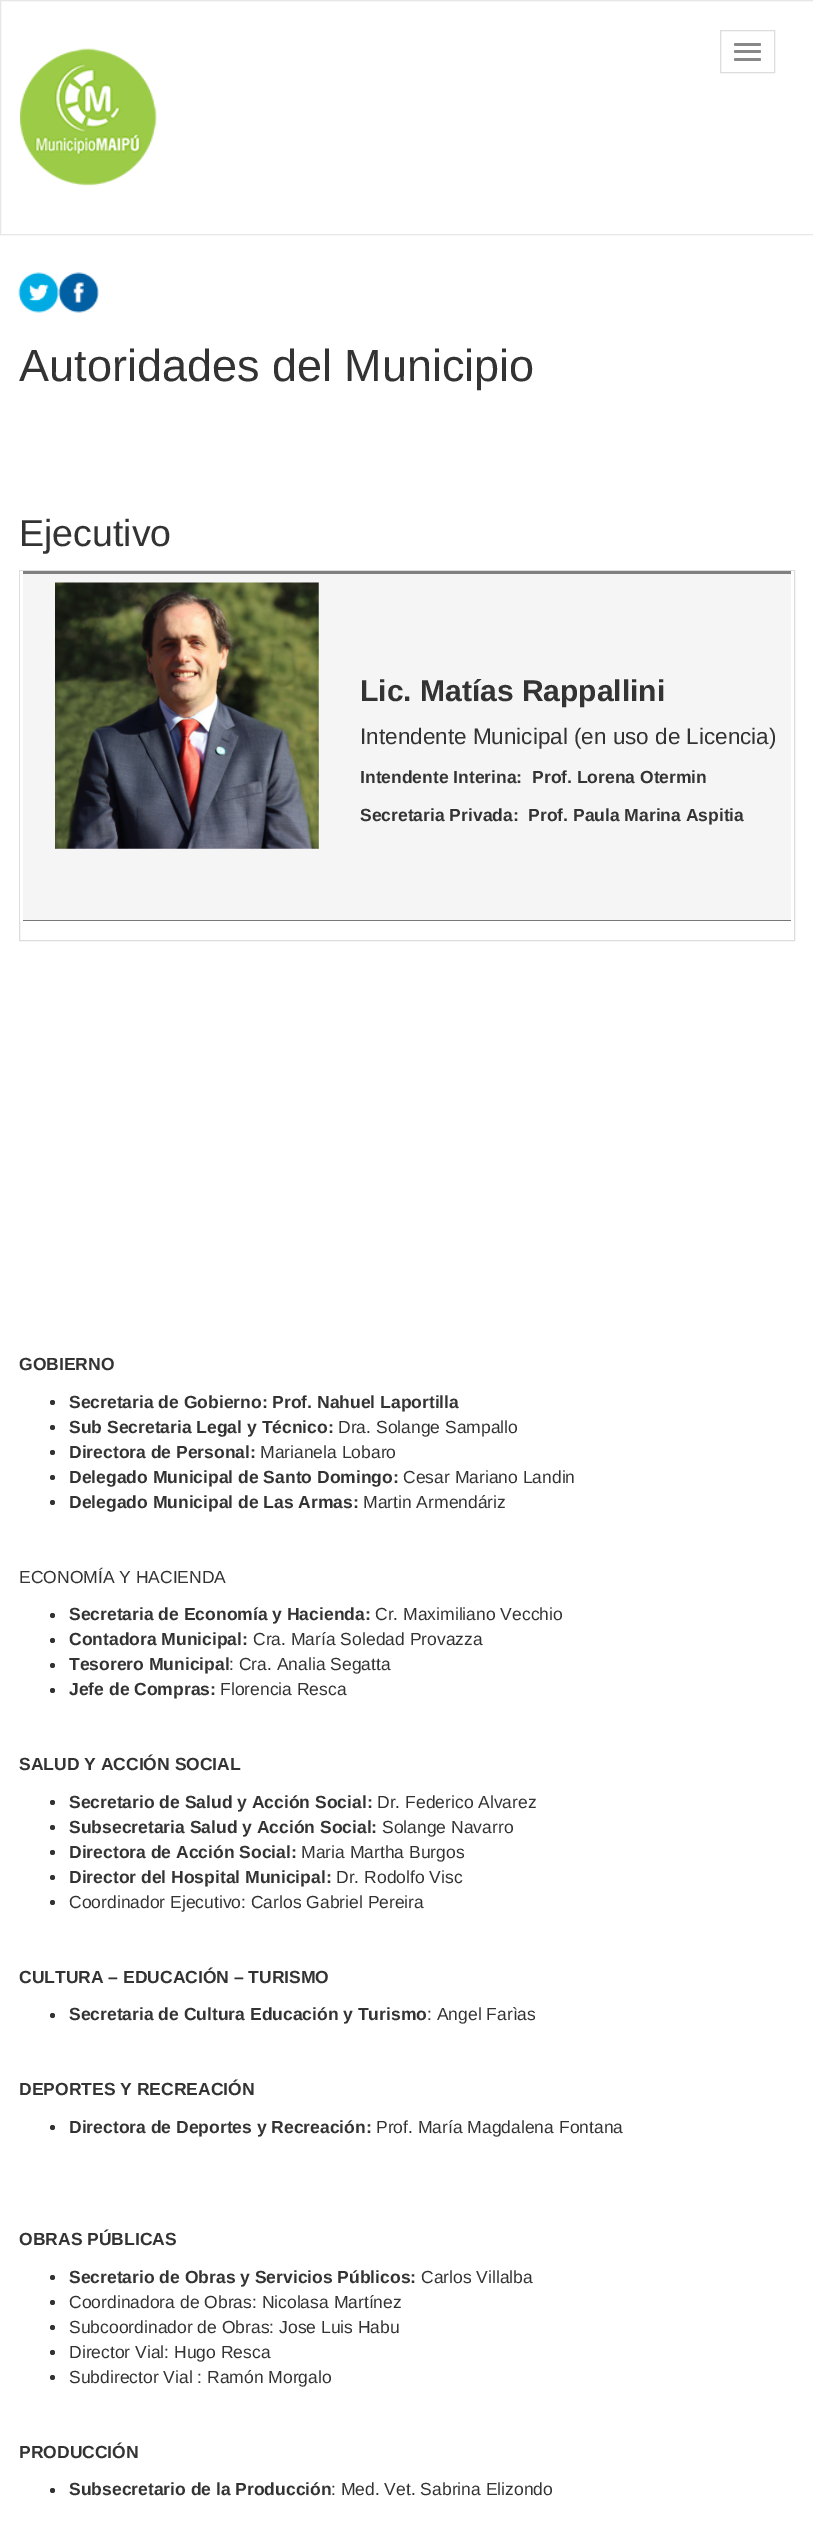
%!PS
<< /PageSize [813 2525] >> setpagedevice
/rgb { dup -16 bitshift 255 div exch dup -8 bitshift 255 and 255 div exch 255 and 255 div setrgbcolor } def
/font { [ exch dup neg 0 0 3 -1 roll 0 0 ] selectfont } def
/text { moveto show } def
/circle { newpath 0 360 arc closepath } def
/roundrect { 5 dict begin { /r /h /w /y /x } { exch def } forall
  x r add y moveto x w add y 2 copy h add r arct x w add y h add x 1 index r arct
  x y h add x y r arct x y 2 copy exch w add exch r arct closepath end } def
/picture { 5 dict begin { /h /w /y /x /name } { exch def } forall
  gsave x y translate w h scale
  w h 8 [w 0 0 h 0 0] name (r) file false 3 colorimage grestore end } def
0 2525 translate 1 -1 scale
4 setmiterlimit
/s1 { /LiberationSans-Regular 45 font 16#333333 rgb } def
/s2 { /LiberationSans-Regular 37.5 font 16#333333 rgb } def
/s3 { /LiberationSans-Bold 30 font 16#333333 rgb } def
/s4 { /LiberationSans-Regular 22.5 font 16#333333 rgb } def
/s5 { /LiberationSans-Bold 17.5 font 16#333333 rgb } def
/s6 { /LiberationSans-Regular 17.5 font 16#333333 rgb } def
16#FFFFFF rgb
0 0 813 2525 rectfill
16#E7E7E7 rgb
0.5 0.5 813 234 rectstroke
(pic1.raw) 20 48 137 138 picture
16#DDDDDD rgb
720.5 30.5 54 42 rectstroke
16#888888 rgb
734 43 27 3 1.5 roundrect fill
734 50 27 3 1.5 roundrect fill
734 58 27 3 1.5 roundrect fill
(pic2.raw) 18 272 41 41 picture
(pic3.raw) 58 272 41 41 picture
s1
(Autoridades del Municipio) 19 381 text
s2
(Ejecutivo) 19 546 text
16#DDDDDD rgb
19.5 570.5 775 370 rectstroke
16#F5F5F5 rgb
23 574 768 346 rectfill
16#808080 rgb
20 571 774 3 rectfill
16#787878 rgb
21 920 773 1 rectfill
16#FFFFFF rgb
791 571 3 350 rectfill
20 571 3 350 rectfill
(pic4.raw) 55 582 264 267 picture
s3
(Lic. Matías Rappallini) 360 701 text
s4
(Intendente Municipal \(en uso de Licencia\)) 360 744 text
s5
(Intendente Interina:  Prof. Lorena Otermin) 360 783 text
(Secretaria Privada:  Prof. Paula Marina Aspitia) 360 821 text
(GOBIERNO) 19 1370 text
52.5 1402.5 2.5 circle fill
(Secretaria de Gobierno: Prof. Nahuel Laportilla) 69 1408 text
52.5 1427.5 2.5 circle fill
(Sub Secretaria Legal y Técnico:) 69 1433 text
s6
(Dra. Solange Sampallo) 338 1433 text
52.5 1452.5 2.5 circle fill
s5
(Directora de Personal:) 69 1458 text
s6
(Marianela Lobaro) 260 1458 text
52.5 1477.5 2.5 circle fill
s5
(Delegado Municipal de Santo Domingo:) 69 1483 text
s6
(Cesar Mariano Landin) 403 1483 text
52.5 1502.5 2.5 circle fill
s5
(Delegado Municipal de Las Armas:) 69 1508 text
s6
(Martin Armendáriz) 363 1508 text
(ECONOMÍA Y HACIENDA) 19 1583 text
52.5 1615.5 2.5 circle fill
s5
(Secretaria de Economía y Hacienda:) 69 1620 text
s6
(Cr. Maximiliano Vecchio) 375 1620 text
52.5 1640.5 2.5 circle fill
s5
(Contadora Municipal:) 69 1645 text
s6
(Cra. María Soledad Provazza) 253 1645 text
52.5 1665.5 2.5 circle fill
s5
(Tesorero Municipal) 69 1670 text
s6
(: Cra. Analia Segatta) 229 1670 text
52.5 1690.5 2.5 circle fill
s5
(Jefe de Compras:) 69 1695 text
s6
(Florencia Resca) 220 1695 text
s5
(SALUD Y ACCIÓN SOCIAL) 19 1770 text
52.5 1802.5 2.5 circle fill
(Secretario de Salud y Acción Social:) 69 1808 text
s6
(Dr. Federico Alvarez) 377 1808 text
52.5 1827.5 2.5 circle fill
s5
(Subsecretaria Salud y Acción Social:) 69 1833 text
s6
(Solange Navarro) 382 1833 text
52.5 1852.5 2.5 circle fill
s5
(Directora de Acción Social:) 69 1858 text
s6
(Maria Martha Burgos) 301 1858 text
52.5 1877.5 2.5 circle fill
s5
(Director del Hospital Municipal:) 69 1883 text
s6
(Dr. Rodolfo Visc) 336 1883 text
52.5 1902.5 2.5 circle fill
(Coordinador Ejecutivo: Carlos Gabriel Pereira) 69 1908 text
s5
(CULTURA – EDUCACIÓN – TURISMO) 19 1983 text
52.5 2015.5 2.5 circle fill
(Secretaria de Cultura Educación y Turismo) 69 2020 text
s6
(: Angel Farìas) 427 2020 text
s5
(DEPORTES Y RECREACIÓN) 19 2095 text
52.5 2127.5 2.5 circle fill
(Directora de Deportes y Recreación:) 69 2133 text
s6
(Prof. María Magdalena Fontana) 376 2133 text
s5
(OBRAS PÚBLICAS) 19 2245 text
52.5 2277.5 2.5 circle fill
(Secretario de Obras y Servicios Públicos:) 69 2283 text
s6
(Carlos Villalba) 421 2283 text
52.5 2302.5 2.5 circle fill
(Coordinadora de Obras: Nicolasa Martínez) 69 2308 text
52.5 2327.5 2.5 circle fill
(Subcoordinador de Obras: Jose Luis Habu) 69 2333 text
52.5 2352.5 2.5 circle fill
(Director Vial: Hugo Resca) 69 2358 text
52.5 2377.5 2.5 circle fill
(Subdirector Vial : Ramón Morgalo) 69 2383 text
s5
(PRODUCCIÓN) 19 2458 text
52.5 2490.5 2.5 circle fill
(Subsecretario de la Producción) 69 2495 text
s6
(: Med. Vet. Sabrina Elizondo) 331 2495 text
showpage
